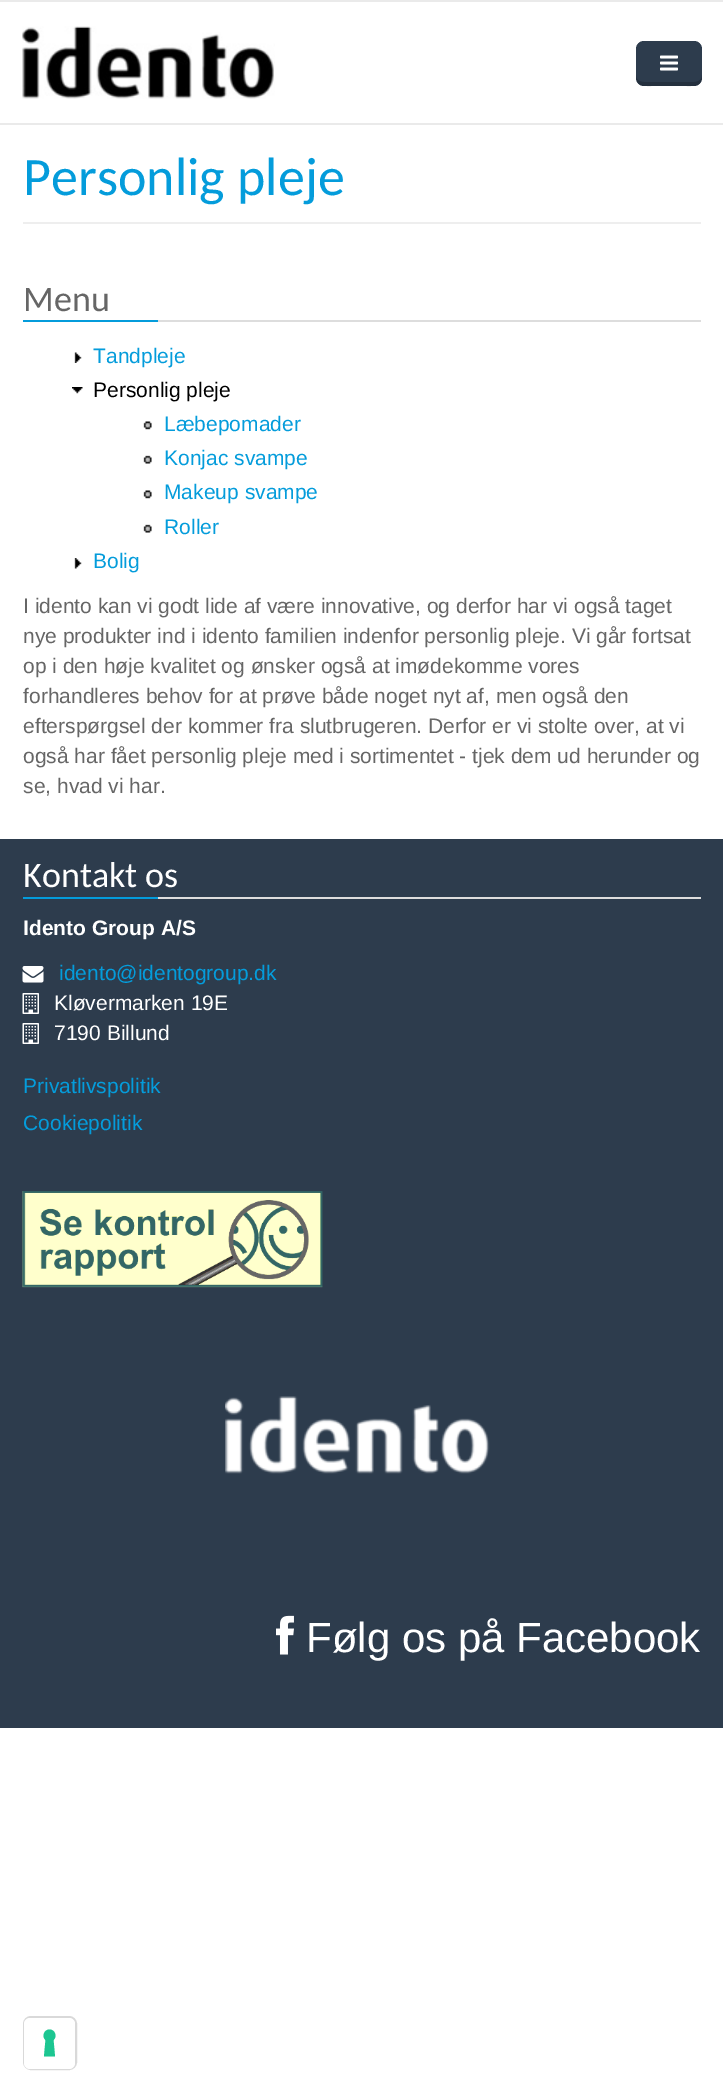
%!PS
<< /PageSize [723 2092] /PageUsesTransparency true >> setpagedevice
/rgb { dup -16 bitshift 255 div exch dup -8 bitshift 255 and 255 div exch 255 and 255 div setrgbcolor } def
/font { [ exch dup neg 0 0 3 -1 roll 0 0 ] selectfont } def
/text { moveto show } def
/alpha { dup .setfillconstantalpha .setstrokeconstantalpha } def
/roundrect { 5 dict begin { /r /h /w /y /x } { exch def } forall
  x r add y moveto x w add y 2 copy h add r arct x w add y h add x 1 index r arct
  x y h add x y r arct x y 2 copy exch w add exch r arct closepath end } def
/picture { 5 dict begin { /h /w /y /x /name } { exch def } forall
  gsave x y translate w h scale
  w h 8 [w 0 0 h 0 0] name (r) file false 3 colorimage grestore end } def
0 .pushpdf14devicefilter
0 2092 translate 1 -1 scale
4 setmiterlimit
/s1 { /Carlito-Regular 54 font 16#049CDB rgb } def
/s2 { /Carlito-Regular 36 font 16#666666 rgb } def
/s3 { /LiberationSans-Regular 21 font 16#049CDB rgb } def
/s4 { /LiberationSans-Regular 21 font 16#000000 rgb } def
/s5 { /LiberationSans-Regular 21 font 16#666666 rgb } def
/s6 { /Carlito-Regular 36 font 16#FFFFFF rgb } def
/s7 { /LiberationSans-Bold 21 font 16#FFFFFF rgb } def
/s8 { /LiberationSans-Regular 21 font 16#FFFFFF rgb } def
/s9 { /LiberationSans-Regular 42 font 16#FFFFFF rgb } def
16#FFFFFF rgb
0 0 723 2092 rectfill
16#EAEAEA rgb
0 0 723 2 rectfill
0 123 723 2 rectfill
(pic1.raw) 22 26 253 73 picture
16#2D3C4D rgb
636 41 66 45 8 roundrect fill
0.2 alpha
16#000000 rgb
636 75 moveto 636 87 642 86 652 86 curveto 686 86 lineto 696 86 702 87 702 75 curveto 702 79 699 82 694 82 curveto 644 82 lineto 639 82 636 79 636 75 curveto closepath fill
1 alpha
(pic2.raw) 660 55 18 16 picture
16#EEEEEE rgb
23 222 678 2 rectfill
s1
(Personlig pleje) 23 195 text
16#DDDDDD rgb
158 320 543 2 rectfill
s2
(Menu) 23 311 text
16#049CDB rgb
23 320 135 2 rectfill
(pic3.raw) 74 352 8 11 picture
s3
(Tandpleje) 93 363 text
(pic4.raw) 72 387 11 7 picture
s4
(Personlig pleje) 93 397 text
(pic5.raw) 143 421 9 9 picture
s3
(Læbepomader) 164 431 text
(pic6.raw) 143 455 9 9 picture
(Konjac svampe) 164 465 text
(pic5.raw) 143 490 9 9 picture
(Makeup svampe) 164 499 text
(pic6.raw) 143 524 9 9 picture
(Roller) 164 534 text
(pic7.raw) 74 558 8 11 picture
(Bolig) 93 568 text
s5
(I idento kan vi godt lide af være innovative, og derfor har vi også taget) 23 613 text
(nye produkter ind i idento familien indenfor personlig pleje. Vi går fortsat) 23 643 text
(op i den høje kvalitet og ønsker også at imødekomme vores) 23 673 text
(forhandleres behov for at prøve både noget nyt af, men også den) 23 703 text
(efterspørgsel der kommer fra slutbrugeren. Derfor er vi stolte over, at vi) 23 733 text
(også har fået personlig pleje med i sortimentet - tjek dem ud herunder og) 23 763 text
(se, hvad vi har.) 23 793 text
16#2D3C4D rgb
0 839 723 889 rectfill
16#DDDDDD rgb
158 897 543 2 rectfill
s6
(Kontakt os) 23 887 text
16#049CDB rgb
23 897 135 2 rectfill
s7
(Idento Group A/S) 23 935 text
(pic8.raw) 22 966 22 17 picture
s3
(idento@identogroup.dk) 59 980 text
(pic9.raw) 22 993 17 21 picture
s8
(Kløvermarken 19E) 54 1010 text
(pic9.raw) 22 1023 17 21 picture
(7190 Billund) 54 1040 text
s3
(Privatlivspolitik) 23 1093 text
(Cookiepolitik) 23 1130 text
(pic10.raw) 22 1191 301 97 picture
(pic11.raw) 225 1396 265 78 picture
(pic12.raw) 276 1615 18 40 picture
s9
(Følg os på Facebook) 306 1652 text
16#D9D9D9 rgb
2 setlinewidth
24 2017 52 52 7 roundrect stroke
16#FFFFFF rgb
24 2018 51 51 6 roundrect fill
16#1CC691 rgb
49.5 2029.5 moveto 55 2029.5 57.5 2036.5 53.5 2040 curveto 55 2056.5 lineto 44 2056.5 lineto 45.5 2040 lineto 41.5 2036.5 44 2029.5 49.5 2029.5 curveto closepath eofill
.poppdf14devicefilter showpage
